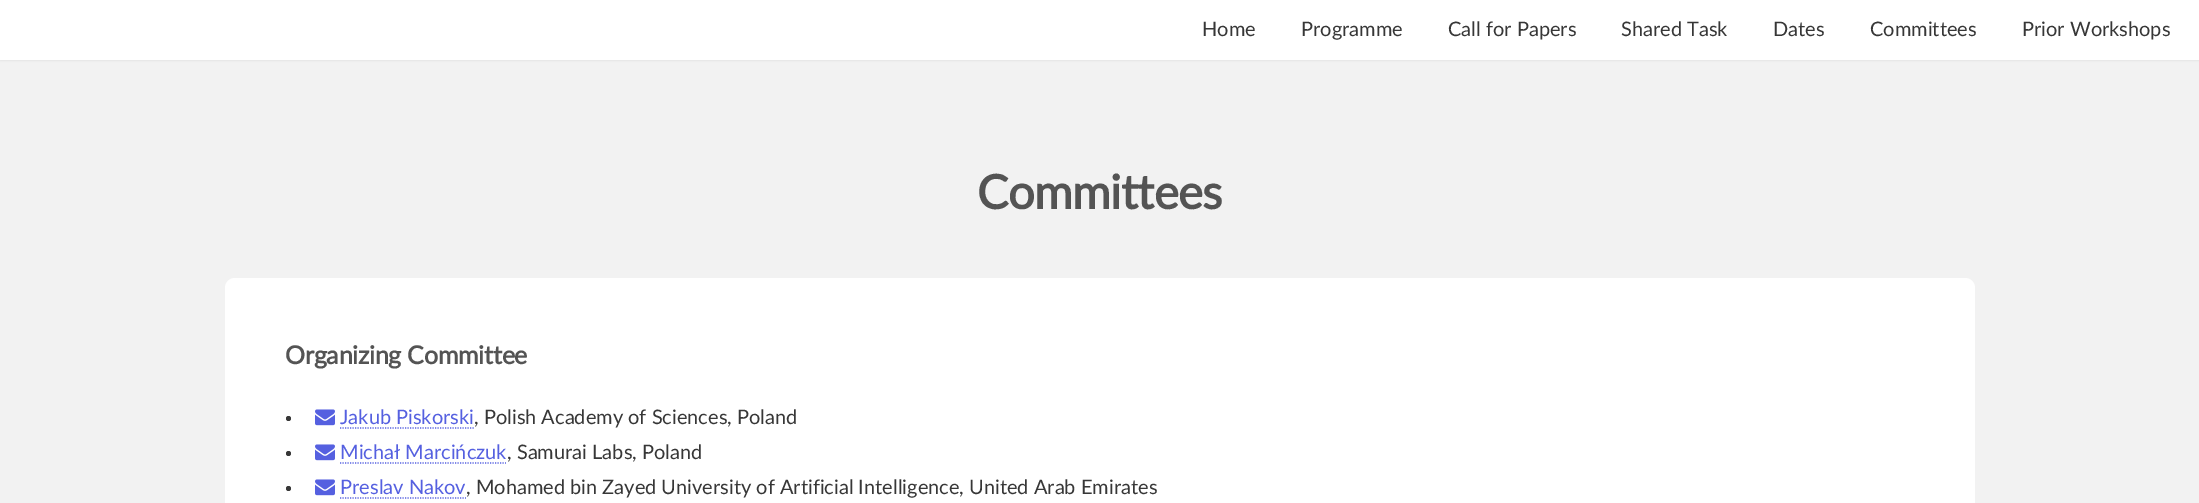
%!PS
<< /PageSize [2199 503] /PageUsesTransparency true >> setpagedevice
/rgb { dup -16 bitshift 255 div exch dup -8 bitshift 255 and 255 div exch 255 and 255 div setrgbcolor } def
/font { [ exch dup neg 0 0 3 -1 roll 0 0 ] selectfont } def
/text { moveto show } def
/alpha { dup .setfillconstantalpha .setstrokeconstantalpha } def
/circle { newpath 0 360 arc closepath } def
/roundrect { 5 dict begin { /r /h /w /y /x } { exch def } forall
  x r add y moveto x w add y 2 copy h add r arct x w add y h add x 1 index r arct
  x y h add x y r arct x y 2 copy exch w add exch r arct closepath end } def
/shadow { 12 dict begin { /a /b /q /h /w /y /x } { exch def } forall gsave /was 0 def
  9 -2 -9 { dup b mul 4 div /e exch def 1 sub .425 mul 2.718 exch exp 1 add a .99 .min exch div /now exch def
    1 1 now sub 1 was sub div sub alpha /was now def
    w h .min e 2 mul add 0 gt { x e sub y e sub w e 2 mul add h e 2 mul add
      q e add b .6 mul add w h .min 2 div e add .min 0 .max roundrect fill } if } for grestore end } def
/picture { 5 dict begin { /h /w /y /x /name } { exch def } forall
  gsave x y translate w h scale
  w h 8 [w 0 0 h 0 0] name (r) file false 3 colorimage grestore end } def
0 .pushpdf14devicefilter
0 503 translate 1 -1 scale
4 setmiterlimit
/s1 { /Lato-Regular 20 font 16#373737 rgb } def
/s2 { /Lato-Regular 20 font 16#5560E0 rgb } def
16#F2F2F2 rgb
0 0 2199 503 rectfill
16#000000 rgb
0 1 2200 60 0 1 0.05 shadow
16#FFFFFF rgb
0 0 2199 60 rectfill
s1
(Home) 1202 36 text
(Programme) 1301 36 text
(Call for Papers) 1448 36 text
(Shared Task) 1621 36 text
(Dates) 1773 36 text
(Committees) 1870 36 text
(Prior Workshops) 2022 36 text
/Lato-Bold 47 font
16#545454 rgb
977 209 moveto -0.5 0 (Committees) ashow
16#FFFFFF rgb
225 278 1750 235 10 roundrect fill
/Lato-Bold 25 font
16#545454 rgb
285 364 moveto -0.25 0 (Organizing Committee) ashow
16#373737 rgb
288.5 418.5 2.5 circle fill
(pic1.raw) 315 409 20 17 picture
s2
(Jakub Piskorski) 340 424 text
1.2 setlinewidth
[1.25 1.25] 0 setdash
340 428 moveto 474 428 lineto stroke
s1
(, Polish Academy of Sciences, Poland) 474 424 text
288.5 453.5 2.5 circle fill
(pic1.raw) 315 444 20 17 picture
s2
(Michał Marcińczuk) 340 459 text
340 463 moveto 506 463 lineto stroke
s1
(, Samurai Labs, Poland) 507 459 text
288.5 488.5 2.5 circle fill
(pic1.raw) 315 479 20 17 picture
s2
(Preslav Nakov) 340 494 text
340 498 moveto 466 498 lineto stroke
s1
(, Mohamed bin Zayed University of Artificial Intelligence, United Arab Emirates) 466 494 text
.poppdf14devicefilter showpage
